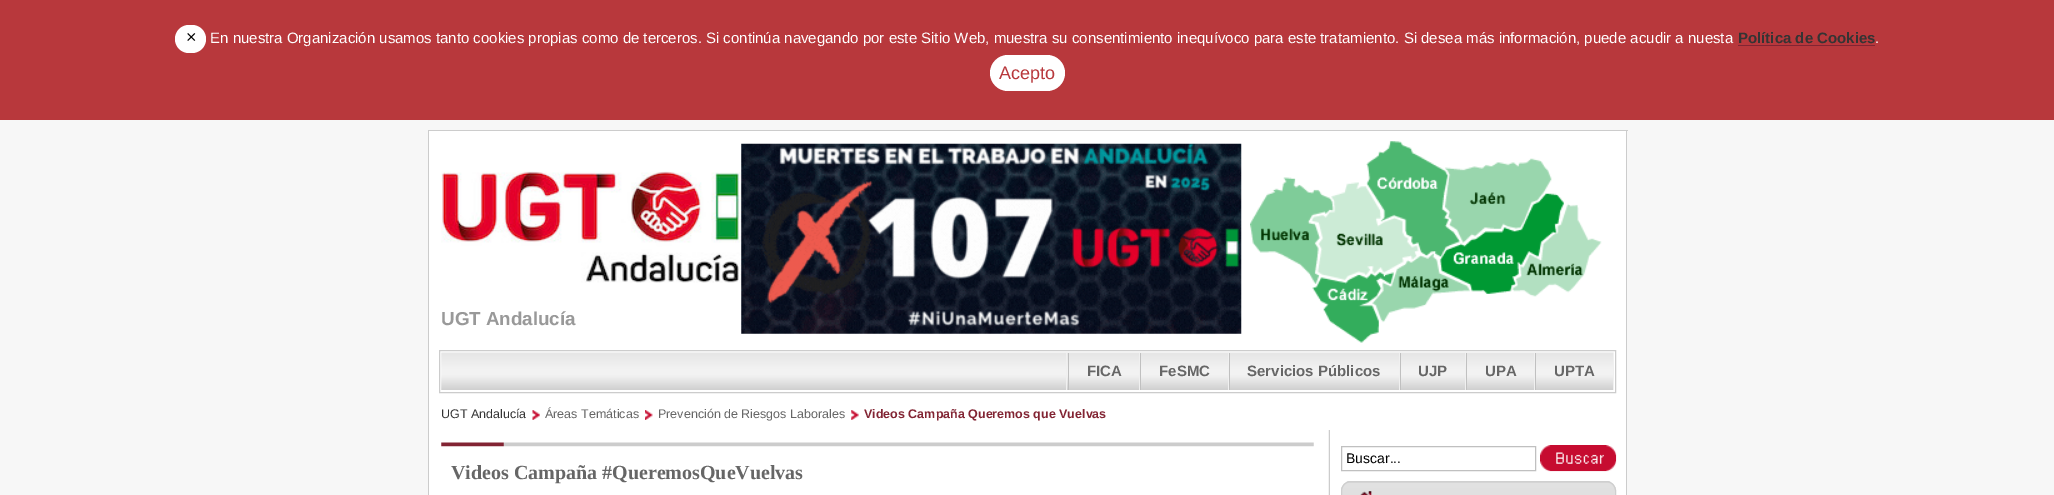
%!PS
<< /PageSize [2054 495] >> setpagedevice
/rgb { dup -16 bitshift 255 div exch dup -8 bitshift 255 and 255 div exch 255 and 255 div setrgbcolor } def
/font { [ exch dup neg 0 0 3 -1 roll 0 0 ] selectfont } def
/text { moveto show } def
/roundrect { 5 dict begin { /r /h /w /y /x } { exch def } forall
  x r add y moveto x w add y 2 copy h add r arct x w add y h add x 1 index r arct
  x y h add x y r arct x y 2 copy exch w add exch r arct closepath end } def
/picture { 5 dict begin { /h /w /y /x /name } { exch def } forall
  gsave x y translate w h scale
  w h 8 [w 0 0 h 0 0] name (r) file false 3 colorimage grestore end } def
0 495 translate 1 -1 scale
4 setmiterlimit
/s1 { /LiberationSans-Regular 18 font 16#000000 rgb } def
/s2 { /LiberationSans-Regular 15 font 16#FFFFFF rgb } def
/s3 { /LiberationSans-Bold 15 font 16#343434 rgb } def
/s4 { /LiberationSans-Regular 18 font 16#B8383C rgb } def
/s5 { /LiberationSans-Bold 18.75 font 16#999999 rgb } def
/s6 { /LiberationSans-Bold 15 font 16#666666 rgb } def
/s7 { /LiberationSans-Regular 12.5 font 16#343434 rgb } def
/s8 { /LiberationSans-Regular 12.5 font 16#666666 rgb } def
/s9 { /LiberationSans-Bold 12.5 font 16#822433 rgb } def
/s10 { /LiberationSans-Regular 14 font 16#000000 rgb } def
/s11 { /LiberationSerif-Bold 20 font 16#666666 rgb } def
16#F7F7F7 rgb
0 0 2054 495 rectfill
16#B8383C rgb
0 0 2054 120 rectfill
16#FFFFFF rgb
175 25 31 28 14 roundrect fill
s1
(×) 186 43 text
s2
(En nuestra Organización usamos tanto cookies propias como de terceros. Si continúa navegando por este Sitio Web, muestra su consentimiento inequívoco para este tratamiento. Si desea más información, puede acudir a nuesta) 210 43 text
s3
(Política de Cookies) 1738 43 text
16#822433 rgb
1738 45 137 1 rectfill
s2
(.) 1875 43 text
990 55 75 36 18 roundrect fill
s4
(Acepto) 999 79 text
16#CCCCCC rgb
428 130 1200 1 rectfill
1626 130 1 300 rectfill
428 130 1 300 rectfill
16#FFFFFF rgb
429 131 1197 364 rectfill
(pic1.raw) 441 171 300 112 picture
s5
(UGT Andalucía) 441 325 text
(pic2.raw) 741 143 501 191 picture
(pic3.raw) 1250 141 352 202 picture
16#CCCCCC rgb
439.5 350.5 1176 42 rectstroke
(pic4.raw) 441 352 1173 38 picture
16#F0F0F0 rgb
1066 353 1 37 rectfill
1139 353 1 37 rectfill
16#C0C0C0 rgb
1068 353 1 37 rectfill
s6
(FICA) 1087 376 text
16#F0F0F0 rgb
1228 353 1 37 rectfill
16#C0C0C0 rgb
1140 353 1 37 rectfill
s6
(FeSMC) 1159 376 text
16#F0F0F0 rgb
1399 353 1 37 rectfill
16#C0C0C0 rgb
1229 353 1 37 rectfill
s6
(Servicios Públicos) 1247 376 text
16#F0F0F0 rgb
1465 353 1 37 rectfill
16#C0C0C0 rgb
1400 353 1 37 rectfill
s6
(UJP) 1418 376 text
16#F0F0F0 rgb
1534 353 1 37 rectfill
16#C0C0C0 rgb
1466 353 1 37 rectfill
s6
(UPA) 1485 376 text
16#F0F0F0 rgb
1613 353 1 37 rectfill
16#C0C0C0 rgb
1535 353 1 37 rectfill
s6
(UPTA) 1554 376 text
s7
(UGT Andalucía) 441 418 text
(pic5.raw) 532 410 8 10 picture
s8
(Áreas Temáticas) 545 418 text
(pic6.raw) 645 410 8 10 picture
(Prevención de Riesgos Laborales) 658 418 text
(pic7.raw) 851 410 8 10 picture
s9
(Videos Campaña Queremos que Vuelvas) 864 418 text
16#C0C0C0 rgb
1341.5 446.5 194 24 rectstroke
s10
(Buscar...) 1346 463 text
(pic8.raw) 1540 445 77 27 picture
16#CCCCCC rgb
1341 481 275 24 10 roundrect fill
(pic9.raw) 1341 482 275 13 picture
16#CFCFCF rgb
1341.5 481.5 274 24 9.5 roundrect stroke
(pic10.raw) 1360 491 12 4 picture
16#CCCCCC rgb
1626 430 1 65 rectfill
428 430 1 65 rectfill
(pic11.raw) 1328 430 2 65 picture
(pic12.raw) 441 442 873 5 picture
s11
(Videos Campaña #QueremosQueVuelvas) 451 479 text
showpage
